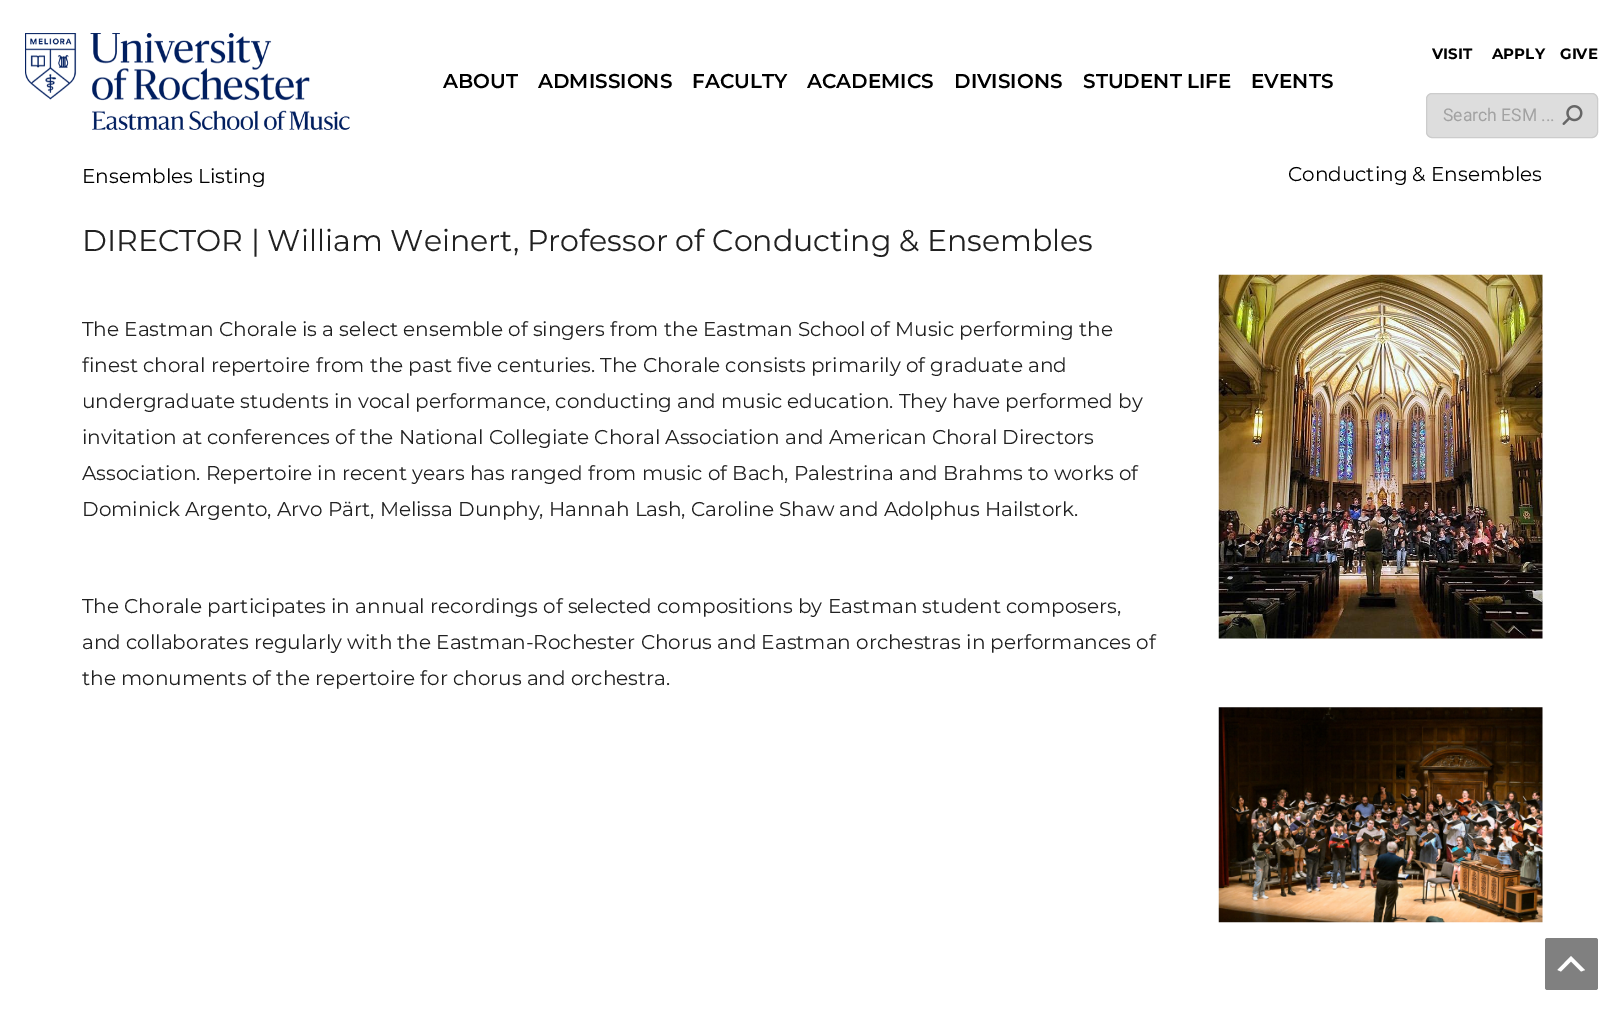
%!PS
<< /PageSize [1622 1015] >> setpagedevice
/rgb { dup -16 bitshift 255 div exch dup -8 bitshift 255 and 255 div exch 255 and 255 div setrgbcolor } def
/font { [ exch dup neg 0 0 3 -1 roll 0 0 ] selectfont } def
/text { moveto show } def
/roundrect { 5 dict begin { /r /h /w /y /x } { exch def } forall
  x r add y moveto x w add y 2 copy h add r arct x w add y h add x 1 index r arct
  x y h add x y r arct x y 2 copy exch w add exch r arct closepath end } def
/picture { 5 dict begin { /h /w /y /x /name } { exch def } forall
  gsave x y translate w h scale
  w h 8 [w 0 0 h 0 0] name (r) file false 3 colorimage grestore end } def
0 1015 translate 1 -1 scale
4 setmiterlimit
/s1 { /Montserrat-SemiBold 20 font 16#000000 rgb } def
/s2 { /Montserrat-Bold 15 font 16#000000 rgb } def
/s3 { /Roboto-Regular 17.5 font 16#A2A2A2 rgb } def
/s4 { /Montserrat-Regular 20 font 16#000000 rgb } def
/s5 { /Montserrat-Regular 30 font 16#212121 rgb } def
/s6 { /Montserrat-Regular 20 font 16#212121 rgb } def
16#FFFFFF rgb
0 0 1622 1015 rectfill
(pic1.raw) 25 33 325 97 picture
s1
(ABOUT) 443 88 text
(ADMISSIONS) 538 88 text
(FACULTY) 692 88 text
(ACADEMICS) 807 88 text
(DIVISIONS) 954 88 text
(STUDENT LIFE) 1083 88 text
(EVENTS) 1251 88 text
s2
(VISIT) 1432 59 text
(APPLY) 1492 59 text
(GIVE) 1560 59 text
16#DDDDDD rgb
1426.5 93.5 171 44 5.5 roundrect gsave fill grestore
16#CCCCCC rgb
stroke
s3
(Search ESM ...) 1443 121 text
(pic2.raw) 1562 105 21 20 picture
s4
(Ensembles Listing) 82 183 text
(Conducting & Ensembles) 1288 181 text
s5
(DIRECTOR | William Weinert, Professor of Conducting & Ensembles) 82 251 text
s6
(The Eastman Chorale is a select ensemble of singers from the Eastman School of Music performing the) 82 336 text
(finest choral repertoire from the past five centuries. The Chorale consists primarily of graduate and) 82 372 text
(undergraduate students in vocal performance, conducting and music education. They have performed by) 82 408 text
(invitation at conferences of the National Collegiate Choral Association and American Choral Directors) 82 444 text
(Association. Repertoire in recent years has ranged from music of Bach, Palestrina and Brahms to works of) 82 480 text
(Dominick Argento, Arvo Pärt, Melissa Dunphy, Hannah Lash, Caroline Shaw and Adolphus Hailstork.) 82 516 text
(The Chorale participates in annual recordings of selected compositions by Eastman student composers,) 82 613 text
(and collaborates regularly with the Eastman-Rochester Chorus and Eastman orchestras in performances of) 82 649 text
(the monuments of the repertoire for chorus and orchestra.) 82 685 text
(pic3.raw) 1218 274 325 365 picture
(pic4.raw) 1218 707 325 216 picture
16#808080 rgb
1545 938 53 52 2.5 roundrect fill
16#FFFFFF rgb
1581 971.5 moveto 1571 961.5 lineto 1561 971.5 lineto 1557.5 970 lineto 1571 956 lineto 1585 970 lineto closepath fill
showpage
